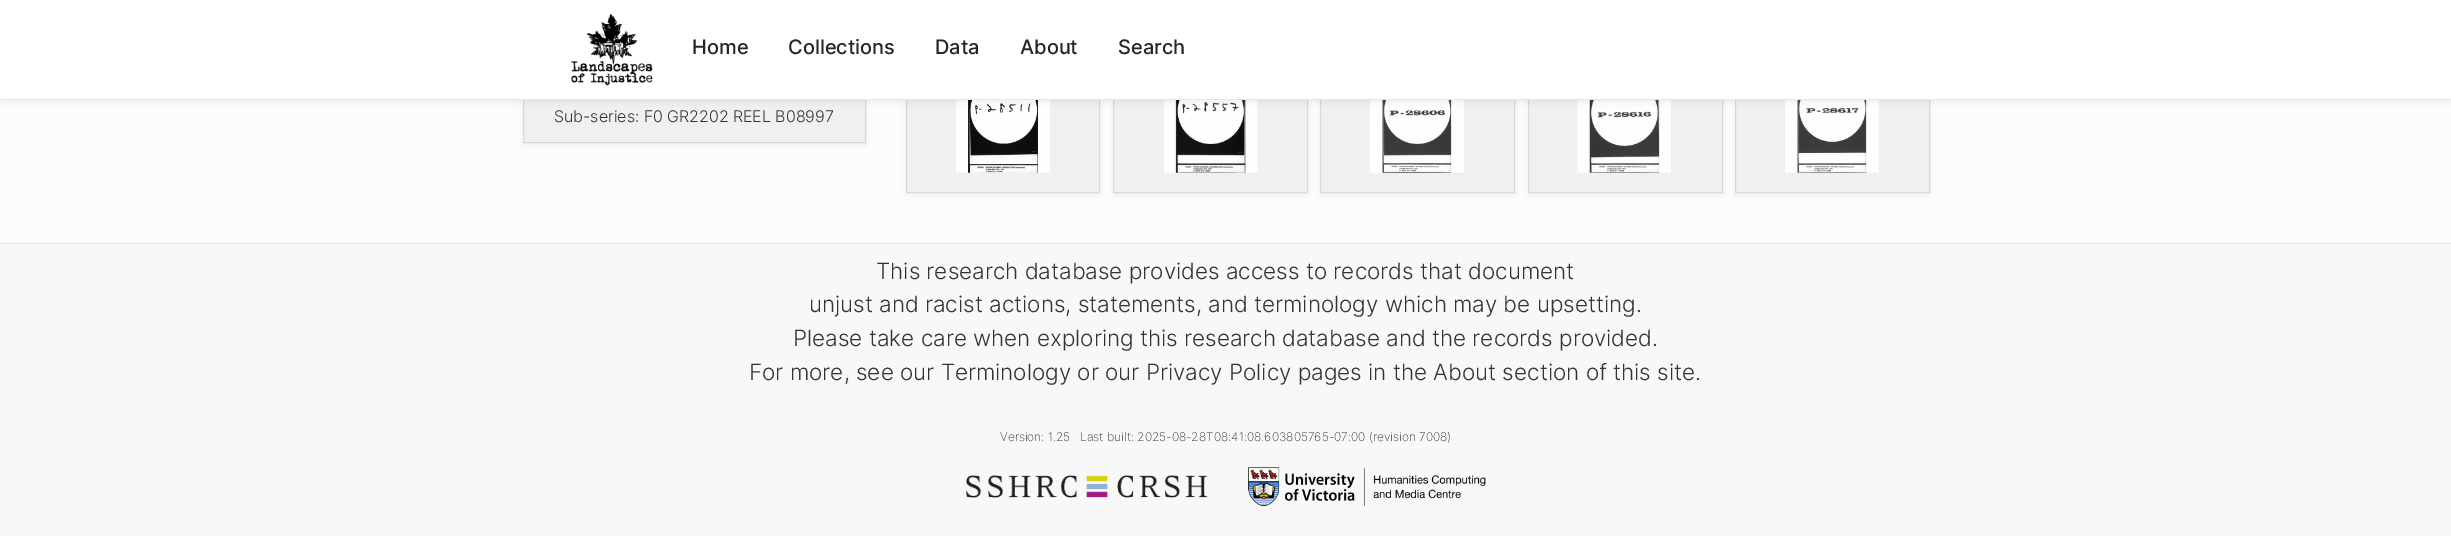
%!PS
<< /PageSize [2451 536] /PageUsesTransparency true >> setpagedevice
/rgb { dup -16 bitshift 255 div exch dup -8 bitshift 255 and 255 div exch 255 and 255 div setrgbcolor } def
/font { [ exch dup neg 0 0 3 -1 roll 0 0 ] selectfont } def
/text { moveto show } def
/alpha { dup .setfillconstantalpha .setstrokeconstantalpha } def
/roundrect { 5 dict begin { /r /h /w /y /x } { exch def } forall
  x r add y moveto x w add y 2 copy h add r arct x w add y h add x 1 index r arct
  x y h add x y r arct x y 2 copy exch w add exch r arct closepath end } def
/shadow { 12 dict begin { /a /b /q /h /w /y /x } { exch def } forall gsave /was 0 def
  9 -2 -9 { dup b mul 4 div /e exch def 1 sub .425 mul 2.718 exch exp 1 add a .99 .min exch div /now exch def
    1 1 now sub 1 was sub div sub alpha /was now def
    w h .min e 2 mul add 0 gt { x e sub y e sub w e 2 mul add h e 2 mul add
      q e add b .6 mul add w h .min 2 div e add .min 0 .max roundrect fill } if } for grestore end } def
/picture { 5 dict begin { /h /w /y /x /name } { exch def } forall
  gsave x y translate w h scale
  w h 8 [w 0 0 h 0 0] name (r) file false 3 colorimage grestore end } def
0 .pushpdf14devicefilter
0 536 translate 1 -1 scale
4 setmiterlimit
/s1 { /Inter-Medium 20 font 16#262626 rgb } def
/s2 { /Inter-Light 16 font 16#333333 rgb } def
/s3 { /Inter-Light 22.5 font 16#333333 rgb } def
/s4 { /Inter-ExtraLight 12 font 16#333333 rgb } def
16#FCFCFC rgb
0 0 2451 536 rectfill
16#000000 rgb
523 -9 343 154 0 3 0.05 shadow
16#F0F0F0 rgb
524 100 341 42 rectfill
16#D8D8D8 rgb
523.5 -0.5 342 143 rectstroke
16#000000 rgb
906 -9 194 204 0 3 0.05 shadow
16#F0F0F0 rgb
907 100 192 92 rectfill
16#D8D8D8 rgb
906.5 -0.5 193 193 rectstroke
(pic2.raw) 956 100 94 73 picture
16#000000 rgb
1113 -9 195 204 0 3 0.05 shadow
16#F0F0F0 rgb
1114 100 193 92 rectfill
16#D8D8D8 rgb
1113.5 -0.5 194 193 rectstroke
(pic3.raw) 1164 100 94 73 picture
16#000000 rgb
1320 -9 195 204 0 3 0.05 shadow
16#F0F0F0 rgb
1321 100 193 92 rectfill
16#D8D8D8 rgb
1320.5 -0.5 194 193 rectstroke
(pic4.raw) 1370 100 94 73 picture
16#000000 rgb
1528 -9 195 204 0 3 0.05 shadow
16#F0F0F0 rgb
1529 100 193 92 rectfill
16#D8D8D8 rgb
1528.5 -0.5 194 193 rectstroke
(pic5.raw) 1577 100 94 73 picture
16#000000 rgb
1735 -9 195 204 0 3 0.05 shadow
16#F0F0F0 rgb
1736 100 193 92 rectfill
16#D8D8D8 rgb
1735.5 -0.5 194 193 rectstroke
(pic6.raw) 1785 100 94 73 picture
16#000000 rgb
0 3 2451 100 0 3 0.05 shadow
16#FFFFFF rgb
0 0 2451 99 rectfill
16#E6E6E6 rgb
0 99 2451 1 rectfill
(pic1.raw) 571 14 82 72 picture
s1
(Home) 692 54 text
(Collections) 788 54 text
(Data) 935 54 text
(About) 1020 54 text
(Search) 1118 54 text
s2
(Sub-series: F0 GR2202 REEL B08997) 554 122 text
16#F8F8F8 rgb
0 244 2451 292 rectfill
16#DFDFDF rgb
0 243 2451 1 rectfill
s3
(This research database provides access to records that document) 876 279 text
(unjust and racist actions, statements, and terminology which may be upsetting.) 809 312 text
(Please take care when exploring this research database and the records provided.) 793 346 text
(For more, see our Terminology or our Privacy Policy pages in the About section of this site.) 749 380 text
s4
(Version: 1.25) 1000 441 text
(Last built: 2025-08-28T08:41:08.603805765-07:00 \(revision 7008\)) 1080 441 text
(pic7.raw) 966 475 242 23 picture
(pic8.raw) 1248 467 238 40 picture
.poppdf14devicefilter showpage
